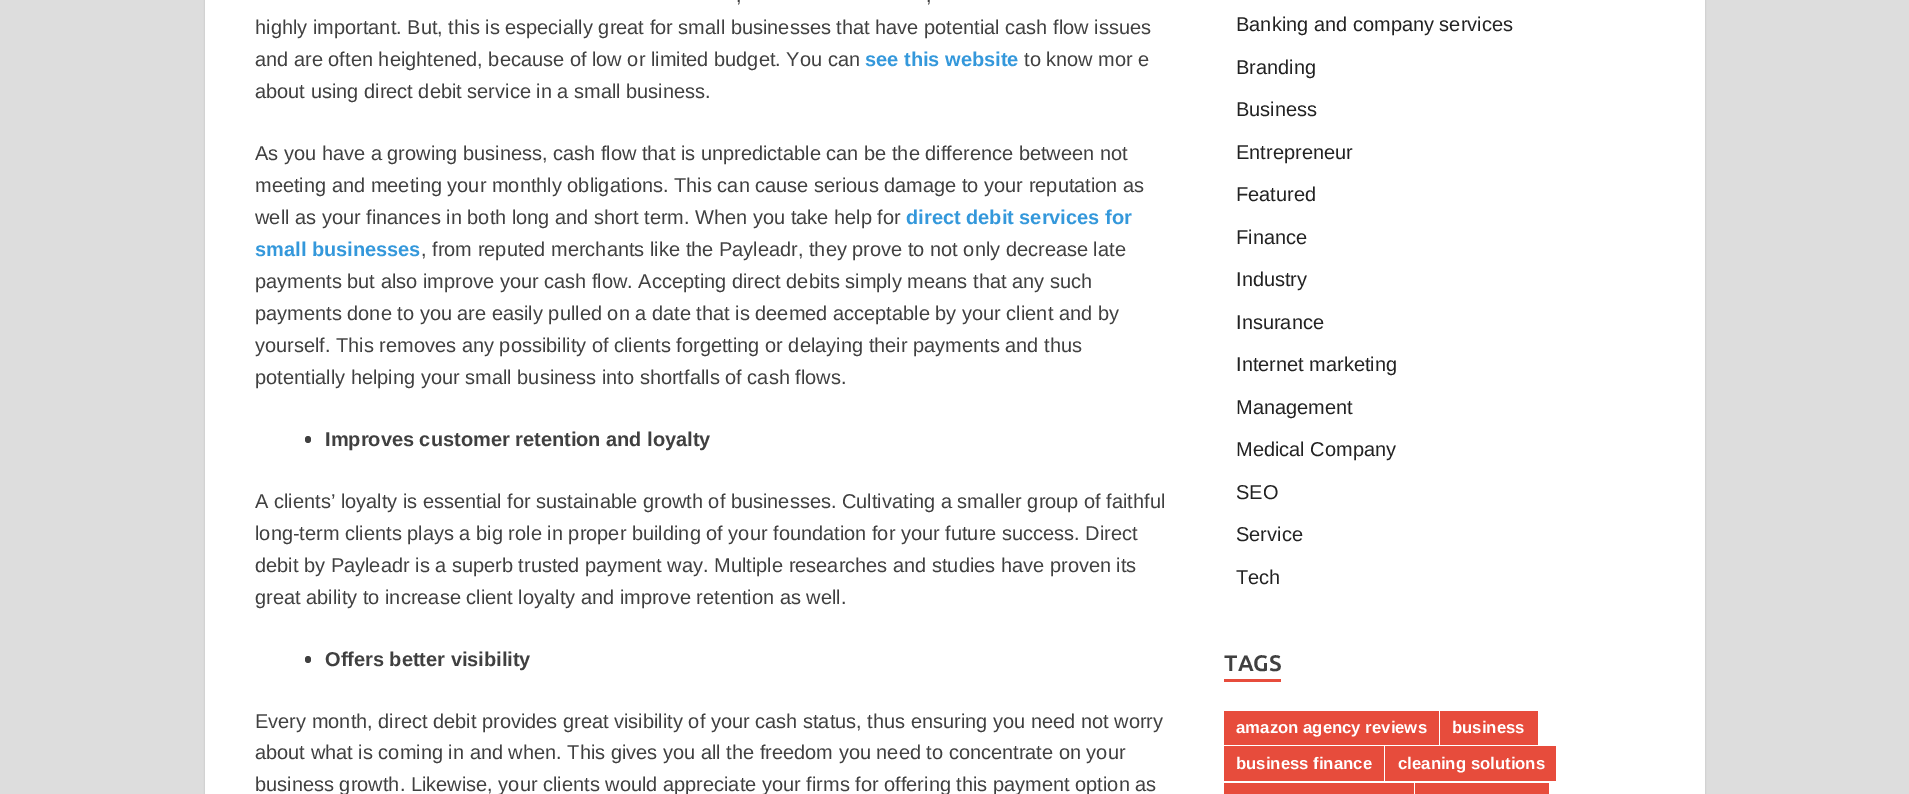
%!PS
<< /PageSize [1909 794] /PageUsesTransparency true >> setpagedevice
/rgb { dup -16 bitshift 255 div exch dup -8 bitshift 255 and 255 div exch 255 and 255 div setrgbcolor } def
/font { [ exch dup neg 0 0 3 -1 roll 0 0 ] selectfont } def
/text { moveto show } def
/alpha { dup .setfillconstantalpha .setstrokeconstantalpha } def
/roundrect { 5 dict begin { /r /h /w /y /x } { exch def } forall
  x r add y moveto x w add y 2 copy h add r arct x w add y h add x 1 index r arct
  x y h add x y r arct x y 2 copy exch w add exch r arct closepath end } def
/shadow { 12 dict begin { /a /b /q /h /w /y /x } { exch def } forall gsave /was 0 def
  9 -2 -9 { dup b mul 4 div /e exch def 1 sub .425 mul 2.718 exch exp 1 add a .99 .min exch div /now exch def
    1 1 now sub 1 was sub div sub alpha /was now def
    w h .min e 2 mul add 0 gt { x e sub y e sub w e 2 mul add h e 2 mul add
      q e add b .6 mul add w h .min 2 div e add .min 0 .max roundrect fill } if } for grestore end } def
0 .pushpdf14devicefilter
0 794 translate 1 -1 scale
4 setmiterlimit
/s1 { /LiberationSans-Regular 20 font 16#404040 rgb } def
/s2 { /LiberationSans-Bold 20 font 16#3498DB rgb } def
/s3 { /LiberationSans-Bold 20 font 16#404040 rgb } def
/s4 { /LiberationSans-Regular 20 font 16#222222 rgb } def
/s5 { /Ubuntu-Bold 22.5 font 16#404040 rgb } def
/s6 { /LiberationSans-Bold 16.75 font 16#FFFFFF rgb } def
16#DDDDDD rgb
0 0 1909 794 rectfill
16#BBBBBB rgb
205 -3 1500 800 0 1 1 shadow
16#FFFFFF rgb
205 0 1500 794 rectfill
s1
(,) 736 2 text
(,) 926 2 text
(highly important. But, this is especially great for small businesses that have potential cash flow issues) 255 34 text
(and are often heightened, because of low or limited budget. You can) 255 66 text
s2
(see this website) 865 66 text
s1
(to know mor e) 1024 66 text
(about using direct debit service in a small business.) 255 98 text
(As you have a growing business, cash flow that is unpredictable can be the difference between not) 255 160 text
(meeting and meeting your monthly obligations. This can cause serious damage to your reputation as) 255 192 text
(well as your finances in both long and short term. When you take help for) 255 224 text
s2
(direct debit services for) 906 224 text
(small businesses) 255 256 text
s1
(, from reputed merchants like the Payleadr, they prove to not only decrease late) 421 256 text
(payments but also improve your cash flow. Accepting direct debits simply means that any such) 255 288 text
(payments done to you are easily pulled on a date that is deemed acceptable by your client and by) 255 320 text
(yourself. This removes any possibility of clients forgetting or delaying their payments and thus) 255 352 text
(potentially helping your small business into shortfalls of cash flows.) 255 384 text
305 436 6 7 3 roundrect fill
s3
(Improves customer retention and loyalty) 325 446 text
s1
(A clients’ loyalty is essential for sustainable growth of businesses. Cultivating a smaller group of faithful) 255 508 text
(long-term clients plays a big role in proper building of your foundation for your future success. Direct) 255 540 text
(debit by Payleadr is a superb trusted payment way. Multiple researches and studies have proven its) 255 572 text
(great ability to increase client loyalty and improve retention as well.) 255 604 text
305 656 6 7 3 roundrect fill
s3
(Offers better visibility) 325 666 text
s1
(Every month, direct debit provides great visibility of your cash status, thus ensuring you need not worry) 255 728 text
(about what is coming in and when. This gives you all the freedom you need to concentrate on your) 255 759 text
(business growth. Likewise, your clients would appreciate your firms for offering this payment option as) 255 791 text
s4
(Banking and company services) 1236 31 text
(Branding) 1236 74 text
(Business) 1236 116 text
(Entrepreneur) 1236 159 text
(Featured) 1236 201 text
(Finance) 1236 244 text
(Industry) 1236 286 text
(Insurance) 1236 329 text
(Internet marketing) 1236 371 text
(Management) 1236 414 text
(Medical Company) 1236 456 text
(SEO) 1236 499 text
(Service) 1236 541 text
(Tech) 1236 584 text
16#E74C3C rgb
1224 679 57 3 rectfill
s5
(TAGS) 1224 671 text
16#E74C3C rgb
1224 711 215 34 rectfill
s6
(amazon agency reviews) 1236 733 text
16#E74C3C rgb
1440 711 98 34 rectfill
s6
(business) 1452 733 text
16#E74C3C rgb
1224 746 160 35 rectfill
s6
(business finance) 1236 769 text
16#E74C3C rgb
1385 746 171 35 rectfill
s6
(cleaning solutions) 1398 769 text
16#E74C3C rgb
1224 783 190 11 rectfill
1415 783 134 11 rectfill
.poppdf14devicefilter showpage
